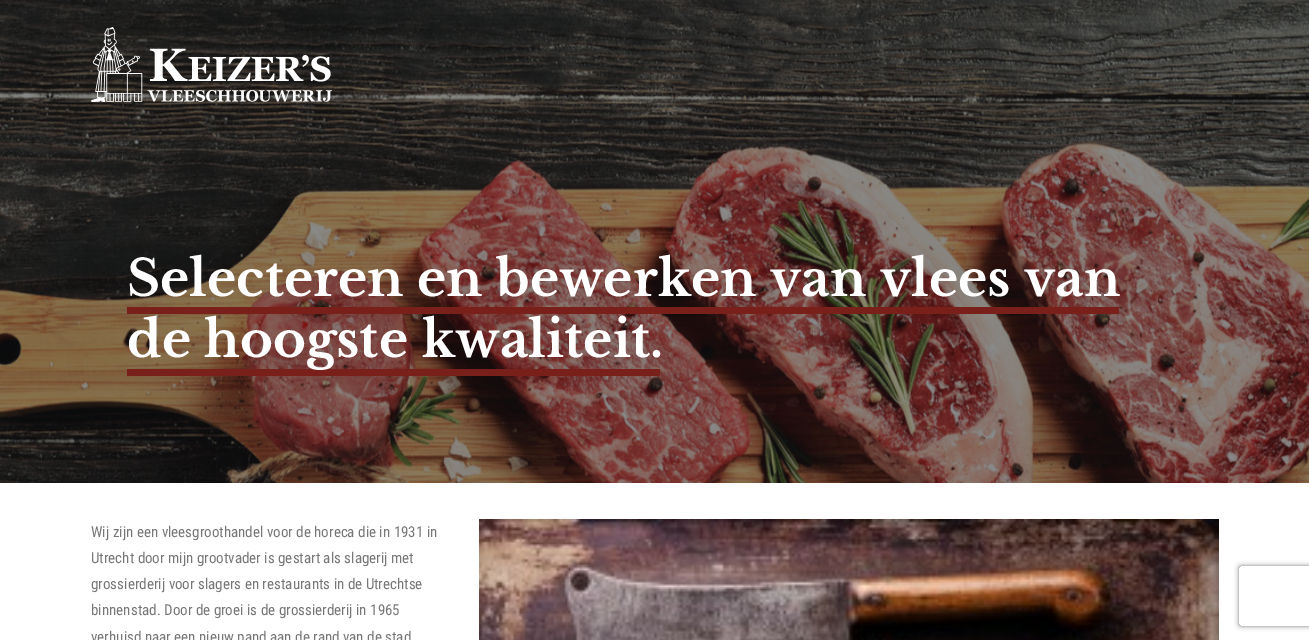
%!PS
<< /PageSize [1309 640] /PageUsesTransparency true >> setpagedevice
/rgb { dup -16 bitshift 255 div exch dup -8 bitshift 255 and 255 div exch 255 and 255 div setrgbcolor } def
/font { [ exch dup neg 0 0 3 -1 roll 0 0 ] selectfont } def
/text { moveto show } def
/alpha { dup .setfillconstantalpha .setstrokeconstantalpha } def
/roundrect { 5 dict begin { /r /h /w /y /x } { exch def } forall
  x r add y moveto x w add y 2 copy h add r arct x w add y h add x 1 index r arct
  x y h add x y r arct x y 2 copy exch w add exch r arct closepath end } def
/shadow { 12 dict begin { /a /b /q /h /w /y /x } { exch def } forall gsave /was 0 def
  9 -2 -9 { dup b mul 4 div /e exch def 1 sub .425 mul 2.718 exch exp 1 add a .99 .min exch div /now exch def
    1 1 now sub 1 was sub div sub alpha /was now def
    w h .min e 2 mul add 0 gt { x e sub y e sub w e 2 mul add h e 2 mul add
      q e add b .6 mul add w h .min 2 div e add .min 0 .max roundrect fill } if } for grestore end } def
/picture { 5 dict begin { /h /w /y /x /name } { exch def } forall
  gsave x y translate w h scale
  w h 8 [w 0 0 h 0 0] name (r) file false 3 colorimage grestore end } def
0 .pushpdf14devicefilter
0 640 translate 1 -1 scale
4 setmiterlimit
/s1 { /LibreBaskerville-Bold 50 font 16#FFFFFF rgb } def
/s2 { /RobotoCondensed-Regular 15 font 16#777777 rgb } def
16#FFFFFF rgb
0 0 1309 640 rectfill
(pic2.raw) 0 0 1309 483 picture
(pic1.raw) 91 27 241 75 picture
s1
(Selecteren) 127 296 text
(en) 417 296 text
(bewerken) 496 296 text
(van) 770 296 text
(vlees) 880 296 text
(van) 1024 296 text
16#7A201B rgb
127 307 992 7 rectfill
s1
(de) 127 357 text
16#7A201B rgb
127 369 533 7 rectfill
s1
(hoogste) 204 357 text
(kwaliteit.) 422 357 text
s2
(Wij zijn een vleesgroothandel voor de horeca die in 1931 in) 91 537 text
(Utrecht door mijn grootvader is gestart als slagerij met) 91 563 text
(grossierderij voor slagers en restaurants in de Utrechtse) 91 589 text
(binnenstad. Door de groei is de grossierderij in 1965) 91 615 text
(verhuisd naar een nieuw pand aan de rand van de stad) 91 642 text
(pic3.raw) 479 519 740 121 picture
gsave
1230 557 moveto 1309 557 lineto 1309 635 lineto 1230 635 lineto closepath 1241 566 moveto 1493 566 lineto 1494 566 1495 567 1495 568 curveto 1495 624 lineto 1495 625 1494 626 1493 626 curveto 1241 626 lineto 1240 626 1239 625 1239 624 curveto 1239 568 lineto 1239 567 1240 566 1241 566 curveto closepath eoclip newpath
16#808080 rgb
1239 566 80 60 2 2.5 1 shadow
grestore
.poppdf14devicefilter showpage
